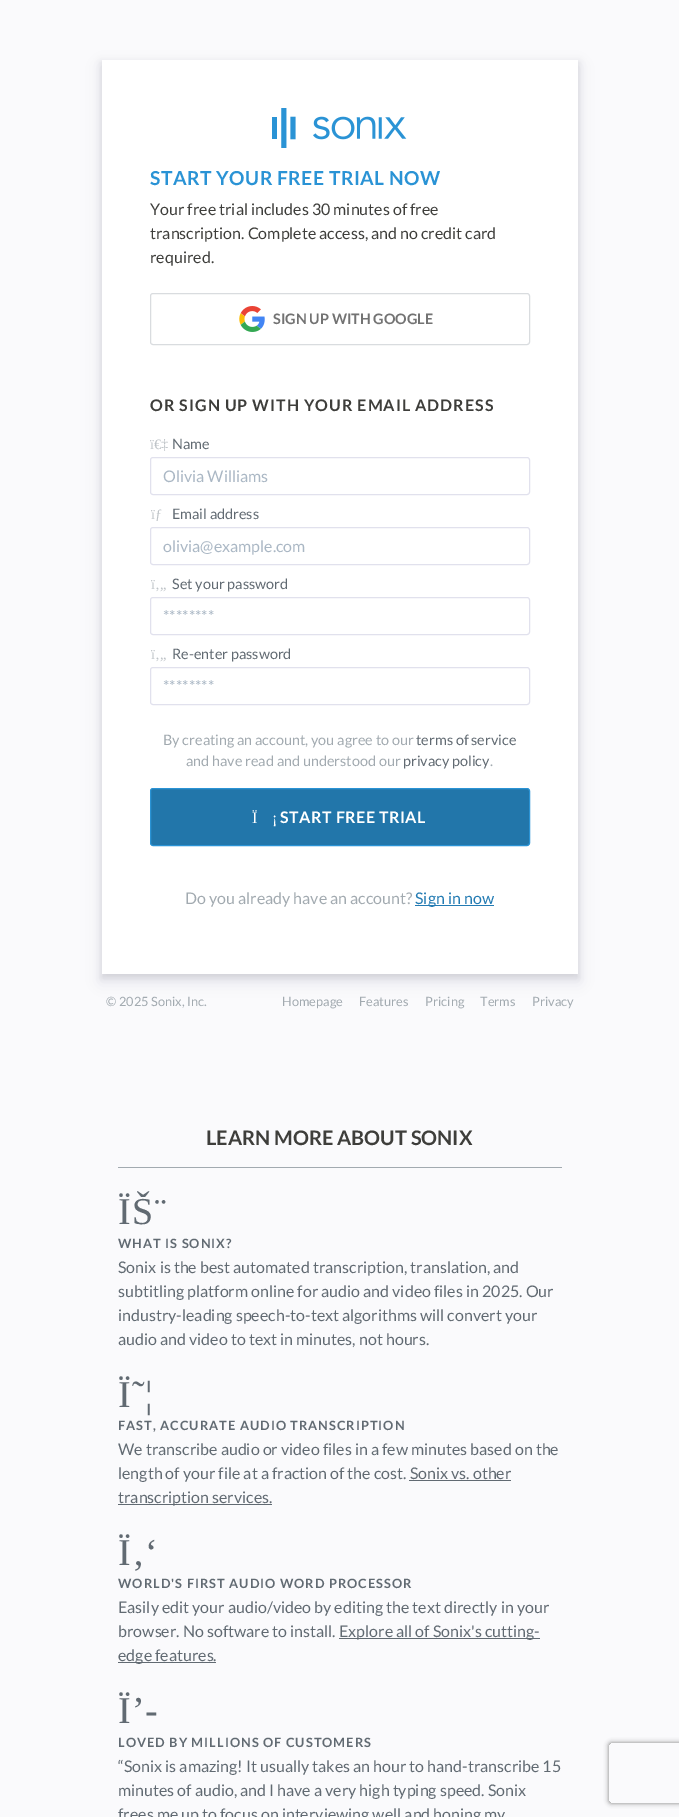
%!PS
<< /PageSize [679 1817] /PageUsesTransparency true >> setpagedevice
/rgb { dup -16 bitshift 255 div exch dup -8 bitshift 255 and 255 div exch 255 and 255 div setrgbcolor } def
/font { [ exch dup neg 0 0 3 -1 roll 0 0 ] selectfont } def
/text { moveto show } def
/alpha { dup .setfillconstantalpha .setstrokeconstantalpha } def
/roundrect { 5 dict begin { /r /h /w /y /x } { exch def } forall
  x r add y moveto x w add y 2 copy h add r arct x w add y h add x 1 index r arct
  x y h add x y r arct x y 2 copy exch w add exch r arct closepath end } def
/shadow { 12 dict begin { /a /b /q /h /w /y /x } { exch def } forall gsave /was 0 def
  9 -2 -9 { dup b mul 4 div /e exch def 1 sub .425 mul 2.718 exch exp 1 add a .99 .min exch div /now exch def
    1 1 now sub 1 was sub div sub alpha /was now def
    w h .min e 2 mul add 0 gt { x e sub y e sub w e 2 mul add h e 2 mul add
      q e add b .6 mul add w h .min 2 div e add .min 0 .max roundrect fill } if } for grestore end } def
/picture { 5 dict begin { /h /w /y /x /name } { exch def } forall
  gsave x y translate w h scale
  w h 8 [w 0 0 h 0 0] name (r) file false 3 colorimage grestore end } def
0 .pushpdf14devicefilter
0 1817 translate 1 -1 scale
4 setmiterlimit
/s1 { /Lato-Regular 16 font 16#3E3E3B rgb } def
/s2 { /Lato-Bold 14.4 font 16#737373 rgb } def
/s3 { /LiberationSerif-Regular 14.4 font 16#BEC3C7 rgb } def
/s4 { /Lato-Regular 14.4 font 16#616A72 rgb } def
/s5 { /Lato-Regular 16 font 16#AAB7C4 rgb } def
/s6 { /Lato-Regular 14.4 font 16#A2AAB0 rgb } def
/s7 { /Lato-Regular 16 font 16#A2AAB0 rgb } def
/s8 { /Lato-Regular 16 font 16#237BB3 rgb } def
/s9 { /Lato-Regular 12.8 font 16#A2AAB0 rgb } def
/s10 { /Lato-Bold 20 font 16#3E3E3B rgb } def
/s11 { /Lato-Regular 16 font 16#616A72 rgb } def
16#FAFAFC rgb
0 0 679 1817 rectfill
16#32325D rgb
101 66 478 916 0 7 0.1 shadow
16#000000 rgb
101 62 478 916 0 3 0.08 shadow
16#FFFFFF rgb
102 60 476 914 rectfill
(pic1.raw) 272 108 135 40 picture
/Lato-Bold 19.25 font
16#2A93D5 rgb
150 185 moveto 0.5 0 (START YOUR FREE TRIAL NOW) ashow
s1
(Your free trial includes 30 minutes of free) 150 215 text
(transcription. Complete access, and no credit card) 150 239 text
(required.) 150 263 text
16#D9DCDF rgb
150.5 293.5 379 51 2.5 roundrect stroke
(pic2.raw) 239 306 26 26 picture
s2
(SIGN UP WITH GOOGLE) 273 324 text
/Lato-Bold 16 font
16#3E3E3B rgb
150 411 moveto 1 0 (OR SIGN UP WITH YOUR EMAIL ADDRESS) ashow
s3
(ï€‡) 150 449 text
s4
(Name) 172 449 text
16#E1E1ED rgb
150.5 457.5 379 37 2.5 roundrect stroke
s5
(Olivia Williams) 163 482 text
s3
(ïƒ) 151 519 text
s4
(Email address) 172 519 text
16#E1E1ED rgb
150.5 527.5 379 37 2.5 roundrect stroke
s5
(olivia@example.com) 163 552 text
s3
(ï‚„) 151 589 text
s4
(Set your password) 172 589 text
16#E1E1ED rgb
150.5 597.5 379 37 2.5 roundrect stroke
s5
(********) 163 622 text
s3
(ï‚„) 151 659 text
s4
(Re-enter password) 172 659 text
16#E1E1ED rgb
150.5 667.5 379 37 2.5 roundrect stroke
s5
(********) 163 692 text
s6
(By creating an account, you agree to our) 163 745 text
s4
(terms of service) 416 745 text
s6
(and have read and understood our) 186 766 text
s4
(privacy policy) 403 766 text
s6
(.) 490 766 text
16#2276AA rgb
150.5 788.5 379 57 2.5 roundrect gsave fill grestore
16#2A93D5 rgb
stroke
/LiberationSerif-Regular 16 font
16#FFFFFF rgb
252 823 moveto 0.5 0 (Ï) ashow
272 823 moveto 0.5 0 (¡) ashow
/Lato-Bold 16 font
280 823 moveto 0.5 0 (START FREE TRIAL) ashow
gsave
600 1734 moveto 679 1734 lineto 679 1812 lineto 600 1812 lineto closepath 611 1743 moveto 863 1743 lineto 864 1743 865 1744 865 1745 curveto 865 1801 lineto 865 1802 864 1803 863 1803 curveto 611 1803 lineto 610 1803 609 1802 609 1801 curveto 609 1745 lineto 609 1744 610 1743 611 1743 curveto closepath eoclip newpath
16#808080 rgb
609 1743 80 60 2 2.5 1 shadow
grestore
s7
(Do you already have an account?) 185 904 text
16#237BB3 rgb
415 905 79 1 rectfill
(Sign in now) 415 904 text
s9
(© 2025 Sonix, Inc.) 106 1006 text
(Homepage) 282 1006 text
(Features) 359 1006 text
(Pricing) 425 1006 text
(Terms) 480 1006 text
(Privacy) 532 1006 text
118 1167 444 1 rectfill
s10
(LEARN MORE ABOUT SONIX) 206 1145 text
/LiberationSerif-Regular 38 font
16#616A72 rgb
118 1224 moveto 1 0 (ÏŠ¨) ashow
/Lato-Bold 12.8 font
118 1248 moveto 1 0 (WHAT IS SONIX?) ashow
s11
(Sonix is the best automated transcription, translation, and) 118 1273 text
(subtitling platform online for audio and video files in 2025. Our) 118 1297 text
(industry-leading speech-to-text algorithms will convert your) 118 1321 text
(audio and video to text in minutes, not hours.) 118 1345 text
/LiberationSerif-Regular 38 font
118 1407 moveto 1 0 (Ï˜¦) ashow
/Lato-Bold 12.8 font
118 1430 moveto 1 0 (FAST, ACCURATE AUDIO TRANSCRIPTION) ashow
s11
(We transcribe audio or video files in a few minutes based on the) 118 1455 text
(length of your file at a fraction of the cost. Sonix vs. other) 118 1479 text
118 1504 154 1 rectfill
(transcription services.) 118 1503 text
409 1480 102 1 rectfill
/LiberationSerif-Regular 38 font
118 1565 moveto 1 0 (Ï‚‘) ashow
/Lato-Bold 12.8 font
118 1588 moveto 1 0 (WORLD'S FIRST AUDIO WORD PROCESSOR) ashow
s11
(Easily edit your audio/video by editing the text directly in your) 118 1613 text
(browser. No software to install.) 118 1637 text
339 1638 201 1 rectfill
(Explore all of Sonix's cutting-) 339 1637 text
118 1662 98 1 rectfill
(edge features.) 118 1661 text
/LiberationSerif-Regular 38 font
118 1723 moveto 1 0 (Ï’-) ashow
/Lato-Bold 12.8 font
118 1747 moveto 1 0 (LOVED BY MILLIONS OF CUSTOMERS) ashow
s11
(“Sonix is amazing! It usually takes an hour to hand-transcribe 15) 118 1772 text
(minutes of audio, and I have a very high typing speed. Sonix) 118 1796 text
(frees me up to focus on interviewing well and honing my) 118 1820 text
.poppdf14devicefilter showpage
